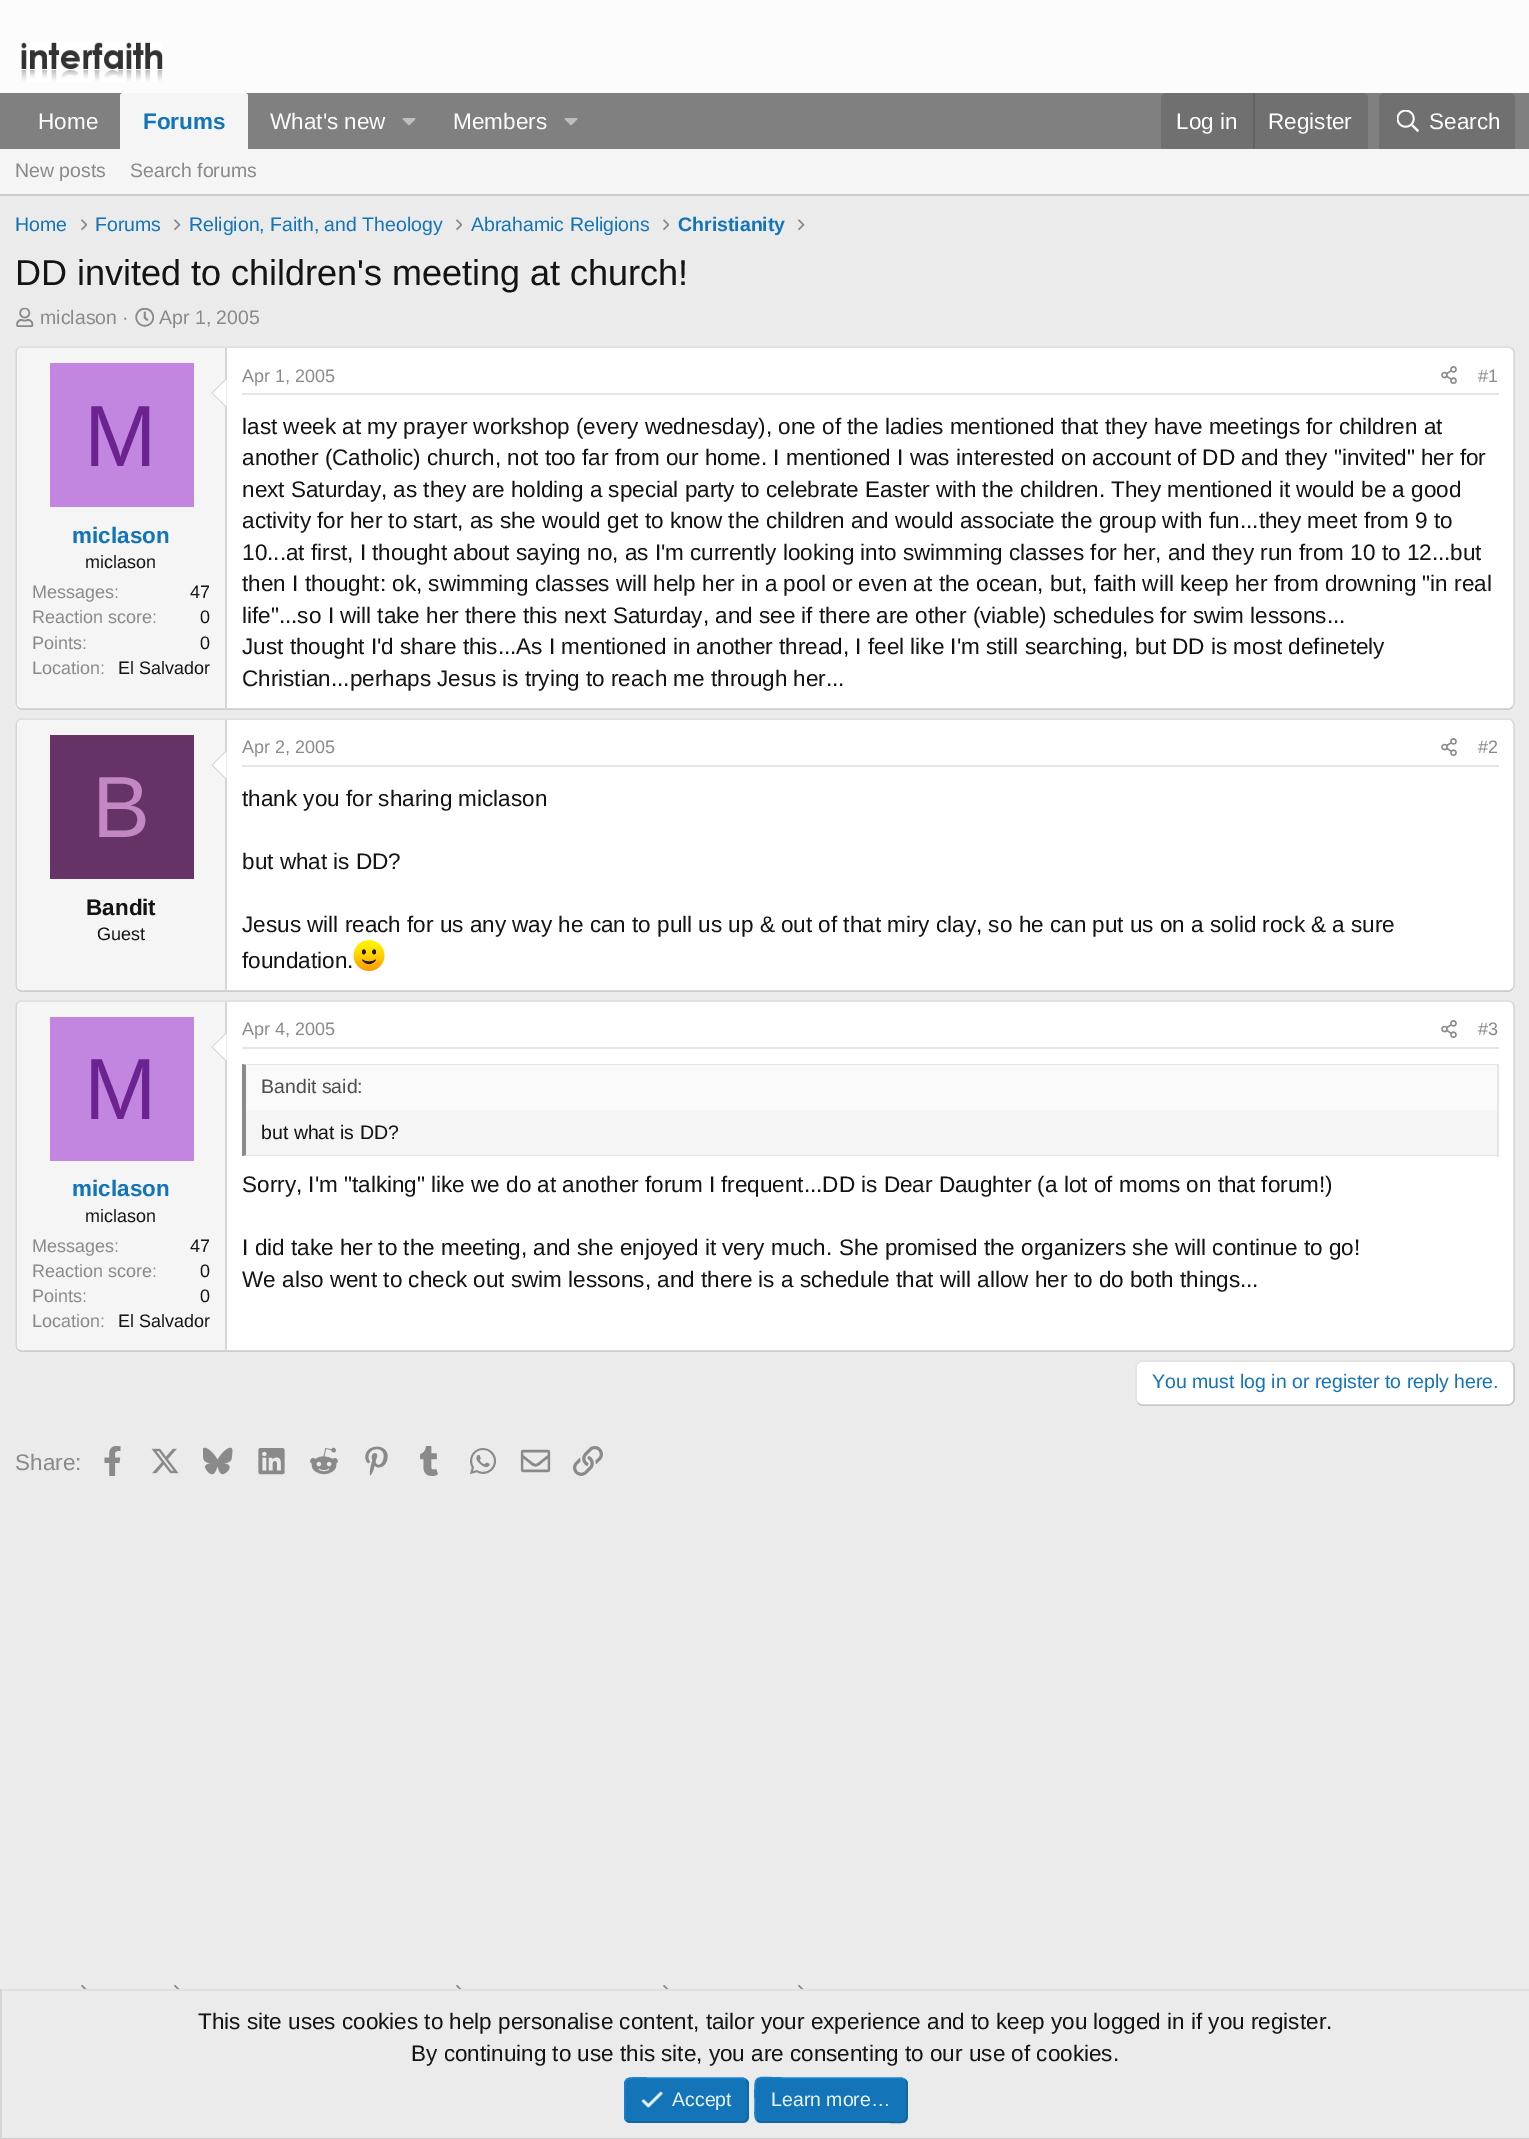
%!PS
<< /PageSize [1529 2139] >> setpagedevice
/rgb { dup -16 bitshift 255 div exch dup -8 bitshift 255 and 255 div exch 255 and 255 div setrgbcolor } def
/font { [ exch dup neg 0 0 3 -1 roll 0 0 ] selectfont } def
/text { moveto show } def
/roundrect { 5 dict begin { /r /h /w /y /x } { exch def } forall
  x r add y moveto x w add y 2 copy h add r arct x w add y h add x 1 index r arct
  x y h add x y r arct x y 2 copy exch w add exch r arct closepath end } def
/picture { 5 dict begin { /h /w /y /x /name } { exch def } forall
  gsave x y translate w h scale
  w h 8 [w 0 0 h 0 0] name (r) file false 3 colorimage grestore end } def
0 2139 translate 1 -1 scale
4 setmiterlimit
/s1 { /LiberationSans-Regular 22.5 font 16#FCFCFC rgb } def
/s2 { /LiberationSans-Bold 22.5 font 16#1474B8 rgb } def
/s3 { /LiberationSans-Regular 19.5 font 16#8A8A8A rgb } def
/s4 { /LiberationSans-Regular 19.5 font 16#1474B8 rgb } def
/s5 { /LiberationSans-Bold 19.5 font 16#1474B8 rgb } def
/s6 { /LiberationSans-Regular 36 font 16#141414 rgb } def
/s7 { /LiberationSans-Regular 87 font 16#6B248F rgb } def
/s8 { /LiberationSans-Regular 18 font 16#141414 rgb } def
/s9 { /LiberationSans-Regular 18 font 16#8A8A8A rgb } def
/s10 { /LiberationSans-Regular 22.5 font 16#141414 rgb } def
/s11 { /LiberationSans-Regular 87 font 16#C388C3 rgb } def
/s12 { /LiberationSans-Bold 22.5 font 16#141414 rgb } def
/s13 { /LiberationSans-Regular 19.5 font 16#4F4F4F rgb } def
/s14 { /LiberationSans-Regular 19.5 font 16#141414 rgb } def
/s15 { /LiberationSans-Regular 22.5 font 16#8A8A8A rgb } def
/s16 { /LiberationSans-Regular 19.5 font 16#E8F4FC rgb } def
16#EBEBEB rgb
0 0 1529 2139 rectfill
16#FCFCFC rgb
0 0 1529 93 rectfill
(pic1.raw) 21 42 142 40 picture
16#808080 rgb
0 93 1529 56 rectfill
s1
(Home) 38 129 text
16#F5F5F5 rgb
123 93 moveto 245 93 lineto 246.5 93 248 94.5 248 96 curveto 248 149 lineto 120 149 lineto 120 96 lineto 120 94.5 121.5 93 123 93 curveto closepath fill
s2
(Forums) 143 129 text
s1
(What's new) 270 129 text
(pic2.raw) 402 118 14 8 picture
(Members) 453 129 text
(pic2.raw) 564 118 14 8 picture
16#707070 rgb
1167 93 moveto 1362 93 lineto 1365.5 93 1368 95.5 1368 99 curveto 1368 149 lineto 1161 149 lineto 1161 99 lineto 1161 95.5 1163.5 93 1167 93 curveto closepath fill
s1
(Log in) 1176 129 text
16#626262 rgb
1253 93 2 56 rectfill
s1
(Register) 1268 129 text
16#707070 rgb
1385 93 moveto 1509 93 lineto 1512.5 93 1515 95.5 1515 99 curveto 1515 149 lineto 1379 149 lineto 1379 99 lineto 1379 95.5 1381.5 93 1385 93 curveto closepath fill
(pic3.raw) 1397 110 22 22 picture
s1
(Search) 1429 129 text
16#F5F5F5 rgb
0 149 1529 45 rectfill
16#CCCCCC rgb
0 194 1529 2 rectfill
s3
(New posts) 15 177 text
(Search forums) 130 177 text
s4
(Home) 15 231 text
(pic4.raw) 81 219 6 12 picture
(Forums) 95 231 text
(pic5.raw) 174 219 7 12 picture
(Religion, Faith, and Theology) 189 231 text
(pic4.raw) 456 219 6 12 picture
(Abrahamic Religions) 471 231 text
(pic4.raw) 663 219 6 12 picture
s5
(Christianity) 678 231 text
(pic5.raw) 798 219 7 12 picture
s6
(DD invited to children's meeting at church!) 15 285 text
(pic6.raw) 16 307 18 20 picture
s3
(miclason ·) 40 324 text
(pic7.raw) 135 307 20 20 picture
(Apr 1, 2005) 159 324 text
16#FFFFFF rgb
15 347 1500 363 6 roundrect fill
16#E0E0E0 rgb
1.5 setlinewidth
17.5 349 moveto 18.5 348 19.5 347 21 347 curveto 1509 347 lineto 1510.5 347 1511.5 348 1512.5 349 curveto stroke
16#D6D6D6 rgb
1512.5 349 moveto 1513.5 350 1514 351 1514 352.5 curveto 1514 703.5 lineto 1514 705 1513.5 706 1512.5 707 curveto stroke
16#CCCCCC rgb
1512.5 707 moveto 1511.5 708 1510.5 709 1509 709 curveto 21 709 lineto 19.5 709 18.5 708 17.5 707 curveto stroke
16#D6D6D6 rgb
17.5 707 moveto 16.5 706 16 705 16 703.5 curveto 16 352.5 lineto 16 351 16.5 350 17.5 349 curveto stroke
16#F5F5F5 rgb
22 348 moveto 227 348 lineto 227 708 lineto 22 708 lineto 19 708 17 706 17 703 curveto 17 353 lineto 17 350 19 348 22 348 curveto closepath fill
16#D6D6D6 rgb
225 348 2 360 rectfill
226.5 378 moveto 226.5 408 lineto 211.5 393 lineto closepath fill
16#FFFFFF rgb
226.5 379.5 moveto 226.5 406.5 lineto 213 393 lineto closepath fill
16#C285E0 rgb
50 363 144 144 rectfill
s7
(M) 84 466 text
s2
(miclason) 72 543 text
s8
(miclason) 85 568 text
s9
(Messages:) 32 598 text
s8
(47) 190 598 text
s9
(Reaction score:) 32 623 text
s8
(0) 200 623 text
s9
(Points:) 32 649 text
s8
(0) 200 649 text
s9
(Location:) 32 674 text
s8
(El Salvador) 118 674 text
16#E5E5E5 rgb
242 393 1257 2 rectfill
s9
(Apr 1, 2005) 242 382 text
(pic8.raw) 1441 366 16 18 picture
(#1) 1478 382 text
s10
(last week at my prayer workshop \(every wednesday\), one of the ladies mentioned that they have meetings for children at) 242 434 text
(another \(Catholic\) church, not too far from our home. I mentioned I was interested on account of DD and they "invited" her for) 242 465 text
(next Saturday, as they are holding a special party to celebrate Easter with the children. They mentioned it would be a good) 242 497 text
(activity for her to start, as she would get to know the children and would associate the group with fun...they meet from 9 to) 242 528 text
(10...at first, I thought about saying no, as I'm currently looking into swimming classes for her, and they run from 10 to 12...but) 242 560 text
(then I thought: ok, swimming classes will help her in a pool or even at the ocean, but, faith will keep her from drowning "in real) 242 591 text
(life"...so I will take her there this next Saturday, and see if there are other \(viable\) schedules for swim lessons...) 242 623 text
(Just thought I'd share this...As I mentioned in another thread, I feel like I'm still searching, but DD is most definetely) 242 654 text
(Christian...perhaps Jesus is trying to reach me through her...) 242 686 text
16#FFFFFF rgb
15 719 1500 273 6 roundrect fill
16#E0E0E0 rgb
17.5 721 moveto 18.5 720 19.5 719 21 719 curveto 1509 719 lineto 1510.5 719 1511.5 720 1512.5 721 curveto stroke
16#D6D6D6 rgb
1512.5 721 moveto 1514 724 lineto 1514 985.5 lineto 1514 987 1513.5 988 1512.5 989 curveto stroke
16#CCCCCC rgb
1512.5 989 moveto 1511.5 990 1510.5 991 1509 991 curveto 21 991 lineto 19.5 991 18.5 990 17.5 989 curveto stroke
16#D6D6D6 rgb
17.5 989 moveto 16.5 988 16 987 16 985.5 curveto 16 724 lineto 17.5 721 lineto stroke
16#F5F5F5 rgb
22 720 moveto 227 720 lineto 227 990 lineto 22 990 lineto 19 990 17 988 17 985 curveto 17 725 lineto 17 722 19 720 22 720 curveto closepath fill
16#D6D6D6 rgb
225 720 2 270 rectfill
226.5 750 moveto 226.5 780 lineto 211.5 765 lineto closepath fill
16#FFFFFF rgb
226.5 751.5 moveto 226.5 778.5 lineto 213 765 lineto closepath fill
16#663366 rgb
50 735 144 144 rectfill
s11
(B) 92 837 text
s12
(Bandit) 86 915 text
s8
(Guest) 97 940 text
16#E5E5E5 rgb
242 765 1257 2 rectfill
s9
(Apr 2, 2005) 242 753 text
(pic8.raw) 1441 738 16 18 picture
(#2) 1478 753 text
s10
(thank you for sharing miclason) 242 806 text
(but what is DD?) 242 869 text
(Jesus will reach for us any way he can to pull us up & out of that miry clay, so he can put us on a solid rock & a sure) 242 932 text
(foundation.) 242 968 text
(pic9.raw) 353 940 32 31 picture
16#FFFFFF rgb
15 1001 1500 351 6 roundrect fill
16#E0E0E0 rgb
17.5 1003 moveto 18.5 1002 19.5 1001 21 1001 curveto 1509 1001 lineto 1510.5 1001 1511.5 1002 1512.5 1003 curveto stroke
16#D6D6D6 rgb
1512.5 1003 moveto 1513.5 1004 1514 1005 1514 1006.5 curveto 1514 1345.5 lineto 1514 1347 1513.5 1348 1512.5 1349 curveto stroke
16#CCCCCC rgb
1512.5 1349 moveto 1511.5 1350 1510.5 1351 1509 1351 curveto 21 1351 lineto 19.5 1351 18.5 1350 17.5 1349 curveto stroke
16#D6D6D6 rgb
17.5 1349 moveto 16.5 1348 16 1347 16 1345.5 curveto 16 1006.5 lineto 16 1005 16.5 1004 17.5 1003 curveto stroke
16#F5F5F5 rgb
22 1002 moveto 227 1002 lineto 227 1350 lineto 22 1350 lineto 19 1350 17 1348 17 1345 curveto 17 1007 lineto 17 1004 19 1002 22 1002 curveto closepath fill
16#D6D6D6 rgb
225 1002 2 348 rectfill
226.5 1032 moveto 226.5 1062 lineto 211.5 1047 lineto closepath fill
16#FFFFFF rgb
226.5 1033.5 moveto 226.5 1060.5 lineto 213 1047 lineto closepath fill
16#C285E0 rgb
50 1017 144 144 rectfill
s7
(M) 84 1119 text
s2
(miclason) 72 1196 text
s8
(miclason) 85 1222 text
s9
(Messages:) 32 1252 text
s8
(47) 190 1252 text
s9
(Reaction score:) 32 1277 text
s8
(0) 200 1277 text
s9
(Points:) 32 1302 text
s8
(0) 200 1302 text
s9
(Location:) 32 1327 text
s8
(El Salvador) 118 1327 text
16#E5E5E5 rgb
242 1047 1257 2 rectfill
s9
(Apr 4, 2005) 242 1035 text
(pic8.raw) 1441 1020 16 18 picture
(#3) 1478 1035 text
16#F5F5F5 rgb
246 1110 1251 45 rectfill
16#E5E5E5 rgb
242 1064 moveto 1498 1064 lineto 1497 1065 lineto 246 1065 lineto closepath fill
1497 1064 2 93 rectfill
1498 1156 moveto 242 1156 lineto 246 1155 lineto 1497 1155 lineto closepath fill
16#8A8A8A rgb
242 1156 moveto 242 1064 lineto 246 1065 lineto 246 1155 lineto closepath fill
16#FAFAFA rgb
246 1065 1251 45 rectfill
s13
(Bandit said:) 261 1093 text
s14
(but what is DD?) 261 1139 text
s10
(Sorry, I'm "talking" like we do at another forum I frequent...DD is Dear Daughter \(a lot of moms on that forum!\)) 242 1192 text
(I did take her to the meeting, and she enjoyed it very much. She promised the organizers she will continue to go!) 242 1255 text
(We also went to check out swim lessons, and there is a schedule that will allow her to do both things...) 242 1287 text
16#FFFFFF rgb
1136 1361 379 45 6 roundrect fill
16#C9C9C9 rgb
1512.5 1363 moveto 1513.5 1364 1514 1365 1514 1366.5 curveto 1514 1399.5 lineto 1514 1401 1513.5 1402 1512.5 1403 curveto 1511.5 1404 1510.5 1405 1509 1405 curveto 1141.5 1405 lineto 1140 1405 1139 1404 1138 1403 curveto stroke
16#E3E3E3 rgb
1138 1403 moveto 1137 1402 1136 1401 1136 1399.5 curveto 1136 1366.5 lineto 1136 1365 1137 1364 1138 1363 curveto 1139 1362 1140 1361 1141.5 1361 curveto 1509 1361 lineto 1510.5 1361 1511.5 1362 1512.5 1363 curveto stroke
s4
(You must log in or register to reply here.) 1152 1388 text
s15
(Share:) 15 1470 text
(pic10.raw) 104 1446 17 30 picture
(pic11.raw) 151 1448 28 26 picture
(pic12.raw) 203 1447 30 28 picture
(pic13.raw) 258 1448 27 27 picture
(pic14.raw) 310 1447 28 28 picture
(pic15.raw) 365 1446 23 30 picture
(pic16.raw) 420 1446 18 30 picture
(pic17.raw) 470 1448 27 27 picture
(pic18.raw) 520 1449 31 24 picture
(pic19.raw) 573 1446 30 30 picture
(pic20.raw) 81 1984 6 5 picture
(pic20.raw) 174 1984 6 5 picture
(pic20.raw) 456 1984 6 5 picture
(pic20.raw) 663 1984 6 5 picture
(pic20.raw) 798 1984 6 5 picture
16#E0E0E0 rgb
0 1989 1529 2 rectfill
16#CCCCCC rgb
0 2138 1529 1 rectfill
16#D6D6D6 rgb
0 1989 2 150 rectfill
s10
(This site uses cookies to help personalise content, tailor your experience and to keep you logged in if you register.) 198 2029 text
(By continuing to use this site, you are consenting to our use of cookies.) 411 2061 text
16#1474B8 rgb
624 2078 125 45 6 roundrect fill
16#1265A1 rgb
746 2080 moveto 748.5 2082 748 2086 748 2089 curveto 748 2100 lineto 748 2125.5 751 2122 724 2122 curveto 630 2122 lineto 628.5 2121.5 627.5 2121 626.5 2120 curveto stroke
16#1782CF rgb
626.5 2120 moveto 624 2118 625 2114 625 2111 curveto 625 2100 lineto 625 2074.5 621.5 2078 649 2078 curveto 742.5 2078 lineto 744 2078.5 745 2079 746 2080 curveto stroke
(pic21.raw) 641 2091 22 17 picture
s16
(Accept) 672 2106 text
16#1474B8 rgb
755 2078 153 45 6 roundrect fill
16#1265A1 rgb
905 2080 moveto 907.5 2082 907 2086 907 2089 curveto 907 2100 lineto 907 2127.5 909.5 2122 878 2122 curveto 760.5 2122 lineto 759 2121.5 758 2121 757 2120 curveto stroke
16#1782CF rgb
757 2120 moveto 754.5 2118 755 2114 755 2111 curveto 755 2100 lineto 755 2072.5 752.5 2078 784 2078 curveto 901.5 2078 lineto 903 2078.5 904 2079 905 2080 curveto stroke
s16
(Learn more…) 771 2106 text
showpage
